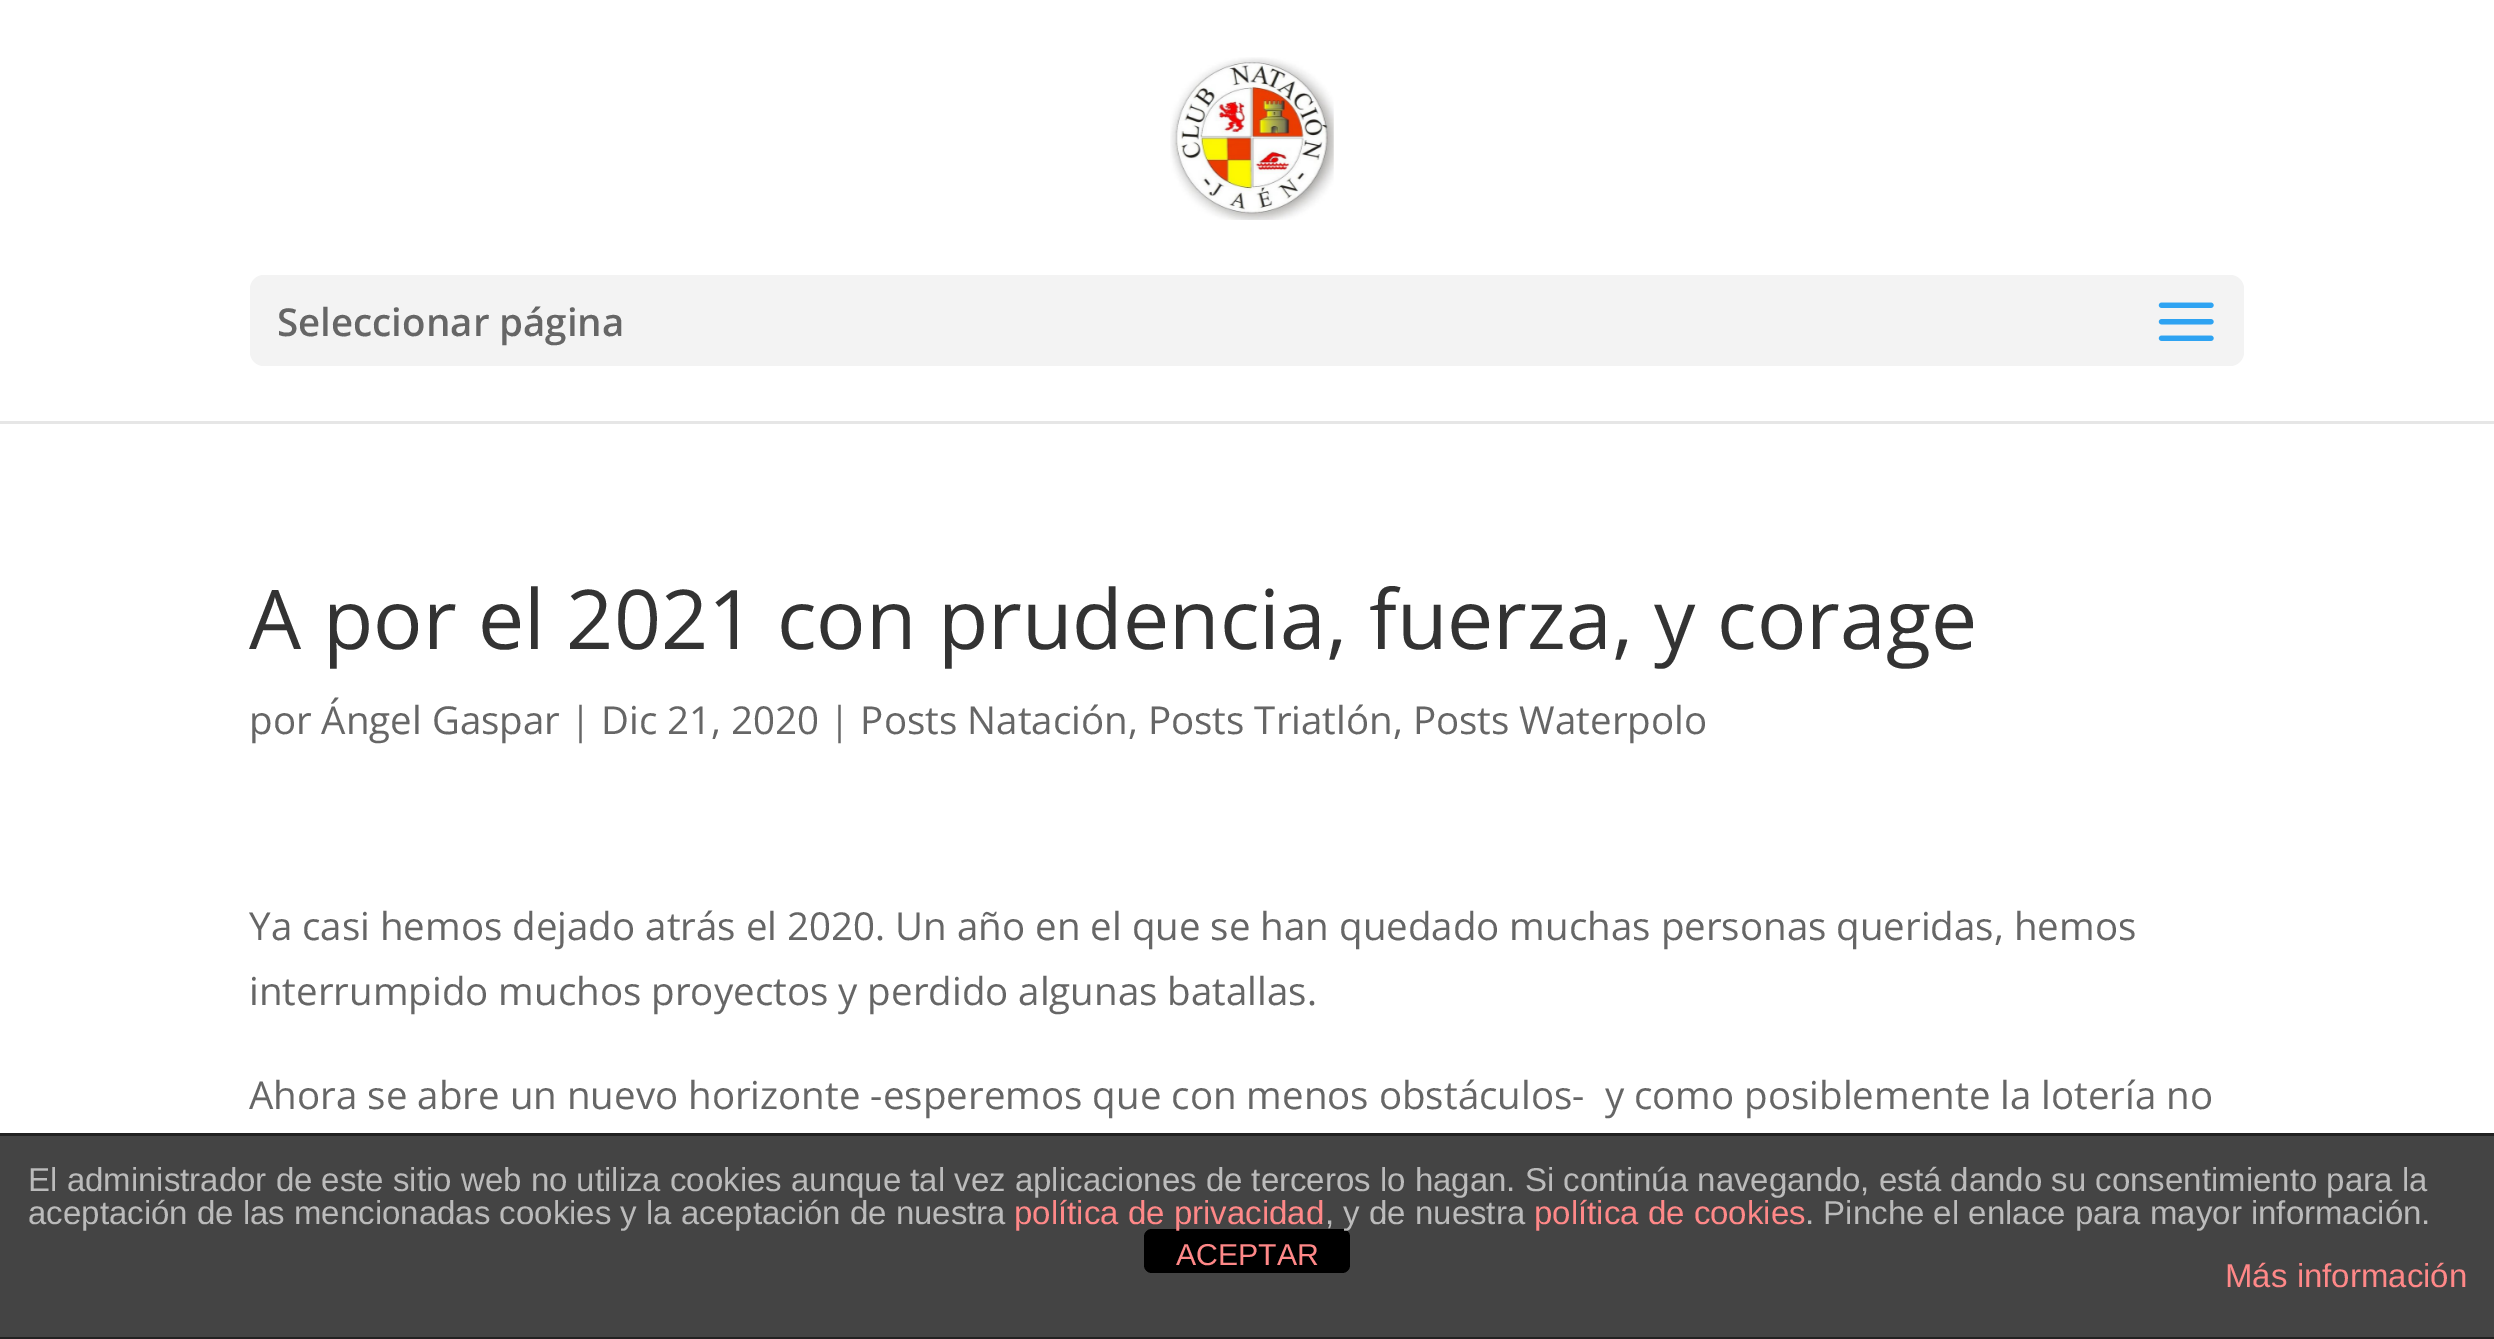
%!PS
<< /PageSize [2494 1339] >> setpagedevice
/rgb { dup -16 bitshift 255 div exch dup -8 bitshift 255 and 255 div exch 255 and 255 div setrgbcolor } def
/font { [ exch dup neg 0 0 3 -1 roll 0 0 ] selectfont } def
/text { moveto show } def
/roundrect { 5 dict begin { /r /h /w /y /x } { exch def } forall
  x r add y moveto x w add y 2 copy h add r arct x w add y h add x 1 index r arct
  x y h add x y r arct x y 2 copy exch w add exch r arct closepath end } def
/picture { 5 dict begin { /h /w /y /x /name } { exch def } forall
  gsave x y translate w h scale
  w h 8 [w 0 0 h 0 0] name (r) file false 3 colorimage grestore end } def
0 1339 translate 1 -1 scale
4 setmiterlimit
/s1 { /OpenSans-SemiBold 38.5 font 16#666666 rgb } def
/s2 { /OpenSans-Regular 82.5 font 16#333333 rgb } def
/s3 { /OpenSans-Regular 38.5 font 16#666666 rgb } def
/s4 { /LiberationSans-Regular 33 font 16#BBBBBB rgb } def
/s5 { /LiberationSans-Regular 33 font 16#FF8888 rgb } def
/s6 { /LiberationSans-Regular 30.25 font 16#FF8888 rgb } def
16#FFFFFF rgb
0 0 2494 1339 rectfill
16#E6E6E6 rgb
0 421 2494 3 rectfill
(pic1.raw) 1170 57 164 163 picture
16#F3F3F3 rgb
250 275 1994 91 14 roundrect fill
s1
(Seleccionar página) 277 336 text
(pic2.raw) 2158 302 56 39 picture
s2
(A por el 2021 con prudencia, fuerza, y corage) 249 649 text
s3
(por Ángel Gaspar | Dic 21, 2020 | Posts Natación, Posts Triatlón, Posts Waterpolo) 249 734 text
(Ya casi hemos dejado atrás el 2020. Un año en el que se han quedado muchas personas queridas, hemos) 249 940 text
(interrumpido muchos proyectos y perdido algunas batallas.) 249 1005 text
(Ahora se abre un nuevo horizonte -esperemos que con menos obstáculos-  y como posiblemente la lotería no) 249 1109 text
16#444444 rgb
0 1136 2494 201 rectfill
16#222222 rgb
0 1133 2494 3 rectfill
0 1337 2494 2 rectfill
s4
(El administrador de este sitio web no utiliza cookies aunque tal vez aplicaciones de terceros lo hagan. Si continúa navegando, está dando su consentimiento para la) 28 1191 text
(aceptación de las mencionadas cookies y la aceptación de nuestra) 28 1224 text
16#000000 rgb
1144 1229 206 44 8 roundrect fill
s5
(política de privacidad) 1014 1224 text
s4
(, y de nuestra) 1325 1224 text
s5
(política de cookies) 1534 1224 text
s4
(. Pinche el enlace para mayor información.) 1805 1224 text
s5
(Más información) 2225 1287 text
s6
(ACEPTAR) 1176 1265 text
showpage
